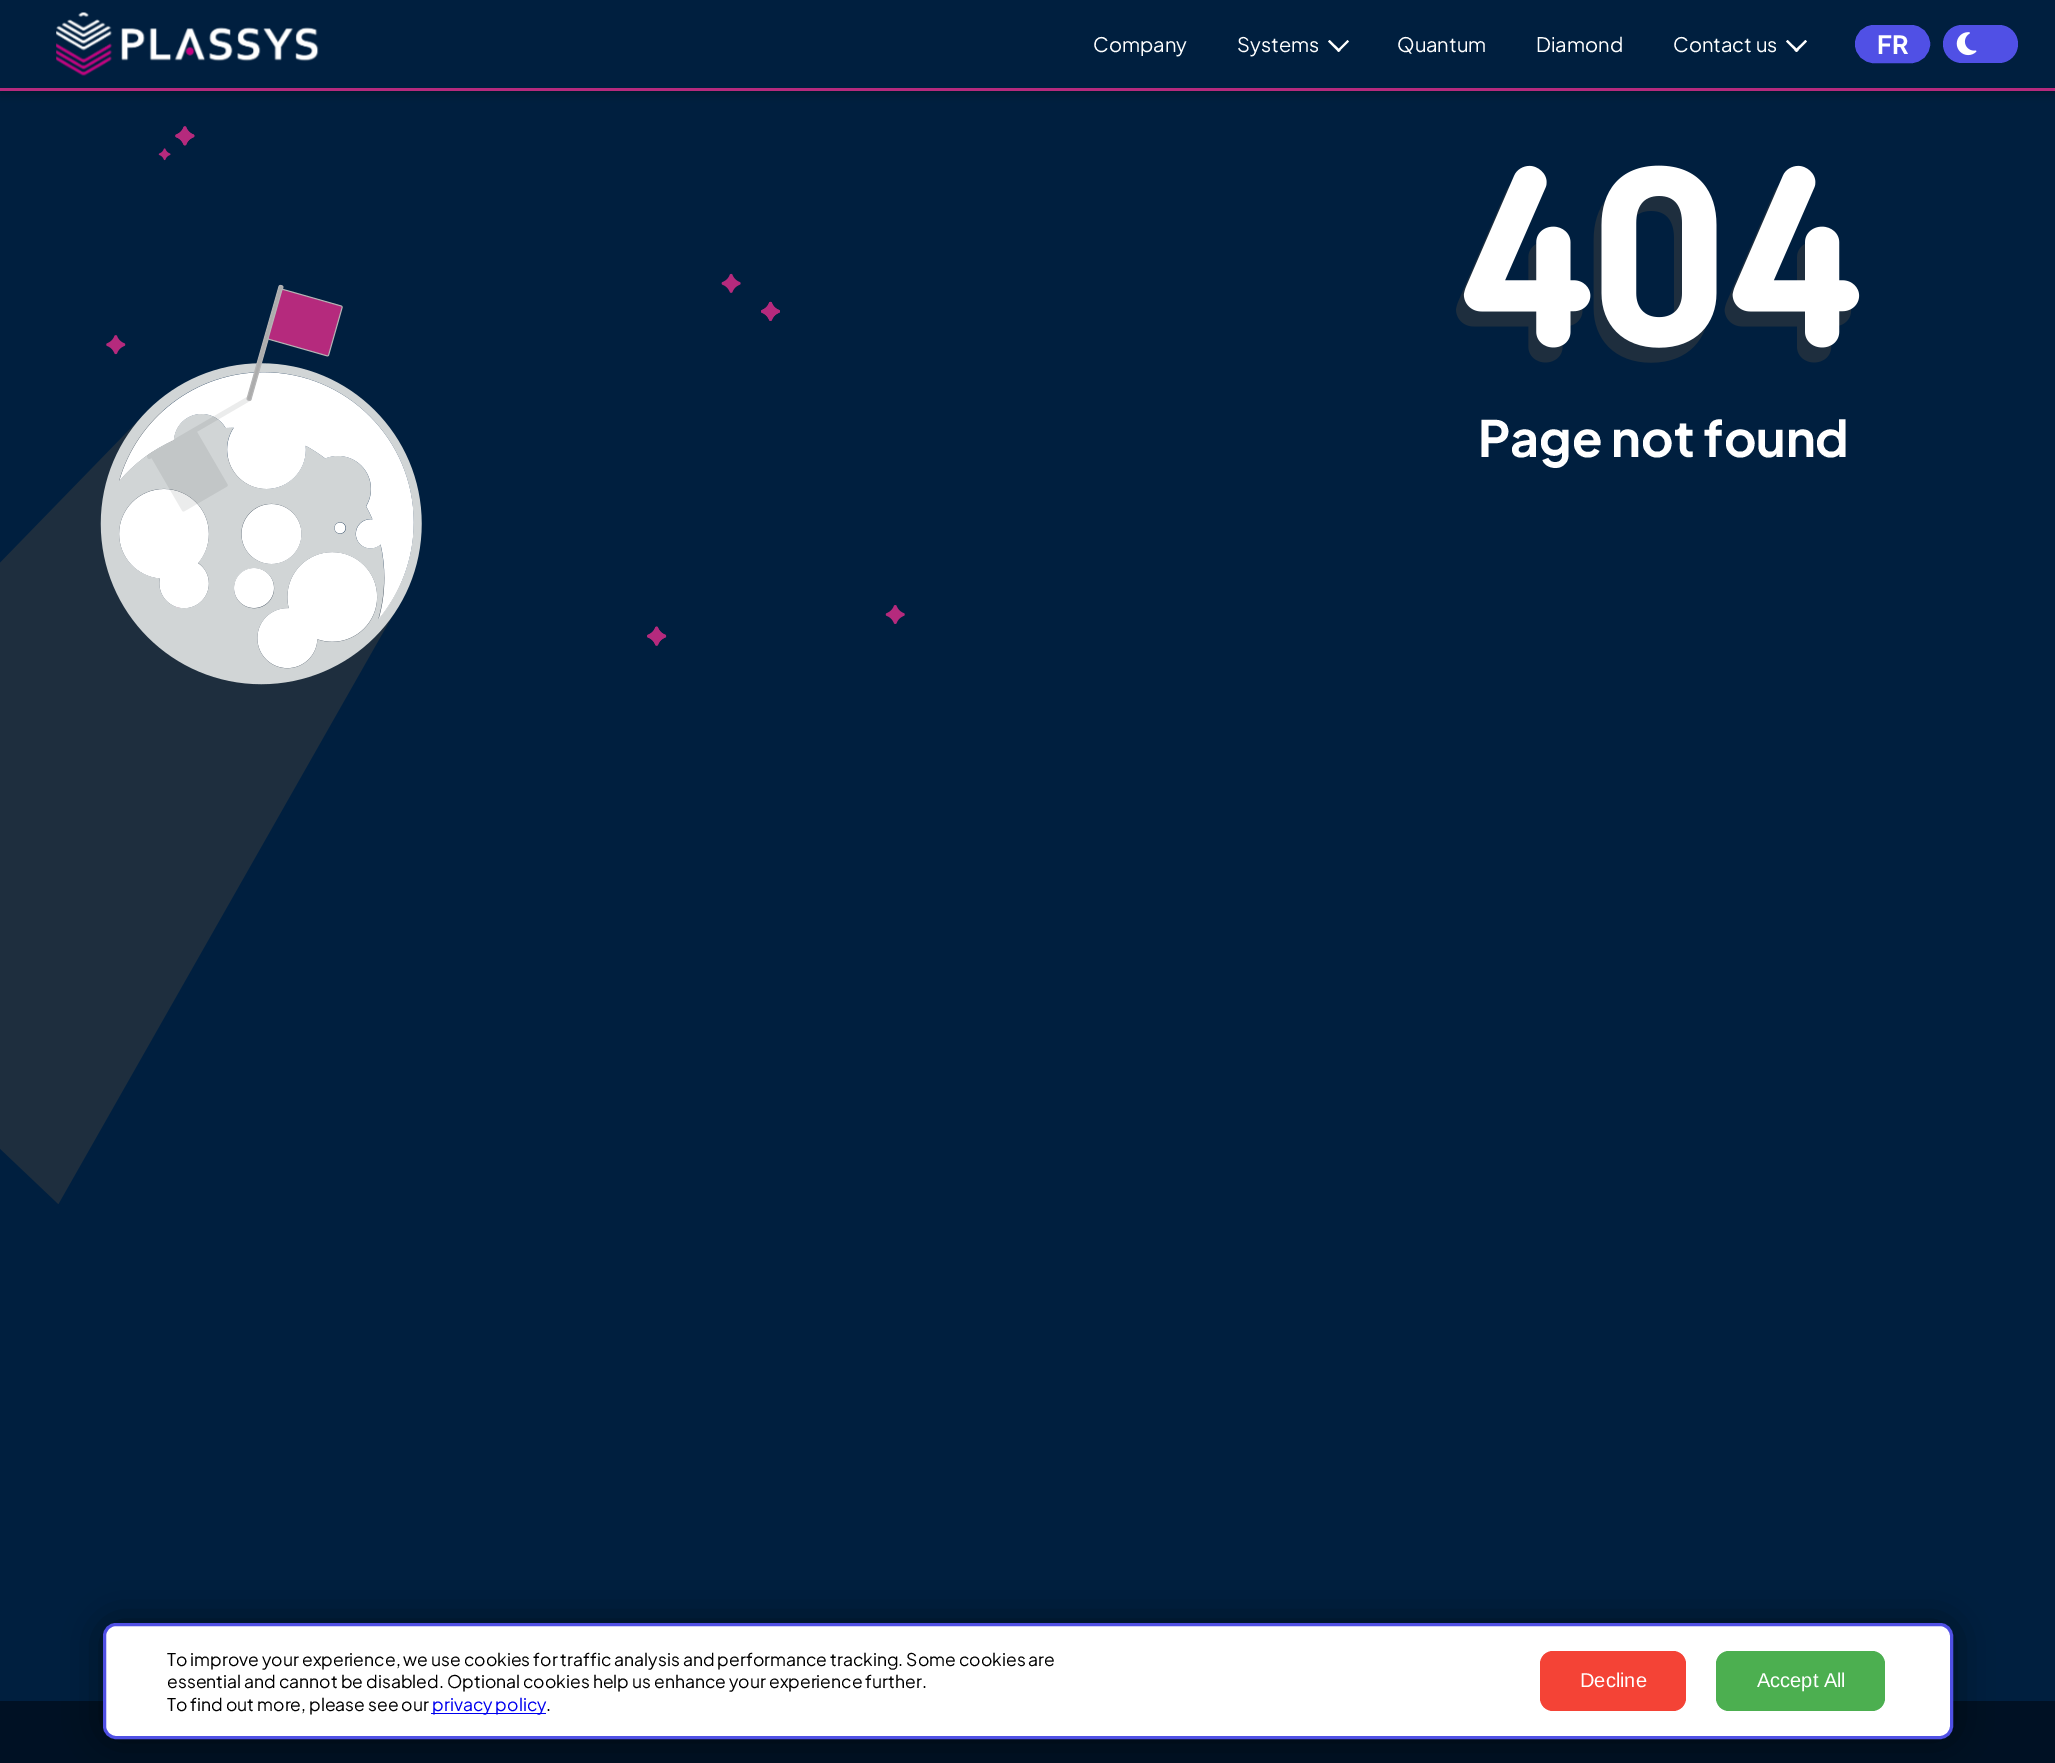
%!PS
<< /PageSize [2055 1763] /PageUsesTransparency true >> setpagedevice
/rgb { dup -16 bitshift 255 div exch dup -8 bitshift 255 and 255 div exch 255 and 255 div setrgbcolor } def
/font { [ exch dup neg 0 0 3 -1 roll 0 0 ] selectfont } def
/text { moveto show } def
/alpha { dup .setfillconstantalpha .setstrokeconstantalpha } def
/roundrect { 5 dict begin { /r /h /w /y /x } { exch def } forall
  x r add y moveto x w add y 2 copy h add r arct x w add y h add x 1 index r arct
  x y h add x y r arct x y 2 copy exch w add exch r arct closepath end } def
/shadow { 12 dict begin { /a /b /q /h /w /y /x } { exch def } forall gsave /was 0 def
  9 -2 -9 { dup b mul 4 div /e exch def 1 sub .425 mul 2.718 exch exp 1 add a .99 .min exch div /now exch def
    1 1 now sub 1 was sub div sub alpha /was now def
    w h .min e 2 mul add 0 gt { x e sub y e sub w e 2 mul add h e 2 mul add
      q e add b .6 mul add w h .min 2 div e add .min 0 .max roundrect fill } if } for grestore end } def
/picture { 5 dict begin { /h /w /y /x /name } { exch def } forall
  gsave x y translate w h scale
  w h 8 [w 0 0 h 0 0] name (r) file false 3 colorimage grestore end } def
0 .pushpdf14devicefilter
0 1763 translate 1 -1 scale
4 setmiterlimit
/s1 { /PlusJakartaSans-Regular 20 font 16#FFFFFF rgb } def
/s2 { /PlusJakartaSans-Bold 25 font 16#FFFFFF rgb } def
/s3 { /PlusJakartaSans-Bold 50 font 16#FFFFFF rgb } def
/s4 { /PlusJakartaSans-Regular 17.5 font 16#000000 rgb } def
/s5 { /PlusJakartaSans-Regular 17.5 font 16#0000EE rgb } def
/s6 { /LiberationSans-Regular 20 font 16#FFFFFF rgb } def
16#001F3F rgb
0 0 2055 1763 rectfill
16#000000 rgb
0 0 2055 90 0 6 0.5 shadow
16#001F3F rgb
0 0 2055 88 rectfill
16#B52A7D rgb
0 88 2055 3 rectfill
(pic1.raw) 56 12 263 64 picture
s1
(Company) 1093 52 text
(Systems) 1237 52 text
1347.5 40 moveto 1349 41.5 lineto 1338.5 52 lineto 1337 50.5 lineto closepath fill
1329.5 40 moveto 1340.5 50.5 lineto 1338.5 52 lineto 1328 41.5 lineto closepath fill
(Quantum) 1397 52 text
(Diamond) 1536 52 text
(Contact us) 1673 52 text
1805.5 40 moveto 1807 41.5 lineto 1796.5 52 lineto 1794.5 50.5 lineto closepath fill
1787.5 40 moveto 1798.5 50.5 lineto 1796.5 52 lineto 1786 41.5 lineto closepath fill
16#5050E5 rgb
1856.5 26.5 72 35 17.5 roundrect gsave fill grestore
3 setlinewidth
stroke
s2
(FR) 1877 54 text
16#5050E5 rgb
1943 25 75 38 19 roundrect fill
(pic2.raw) 1956 32 21 24 picture
(pic3.raw) 0 126 905 1078 picture
(pic4.raw) 1456 165 404 198 picture
s3
(Page not found) 1478 457 text
16#001124 rgb
0 1701 2055 62 rectfill
16#000000 rgb
103 1623 1850 116 13 19 0.5 shadow
16#FFFFFF rgb
104.5 1624.5 1847 113 11.5 roundrect gsave fill grestore
16#5050E5 rgb
stroke
s4
(To improve your experience, we use cookies for traffic analysis and performance tracking. Some cookies are) 167 1666 text
(essential and cannot be disabled. Optional cookies help us enhance your experience further.) 167 1688 text
(To find out more, please see our) 167 1711 text
16#0000EE rgb
431 1713 115 1 rectfill
(privacy policy) 432 1711 text
s4
(.) 546 1711 text
16#F44336 rgb
1540 1651 146 60 13 roundrect fill
s6
(Decline) 1580 1687 text
16#4CAF50 rgb
1716 1651 169 60 13 roundrect fill
s6
(Accept All) 1757 1687 text
.poppdf14devicefilter showpage
